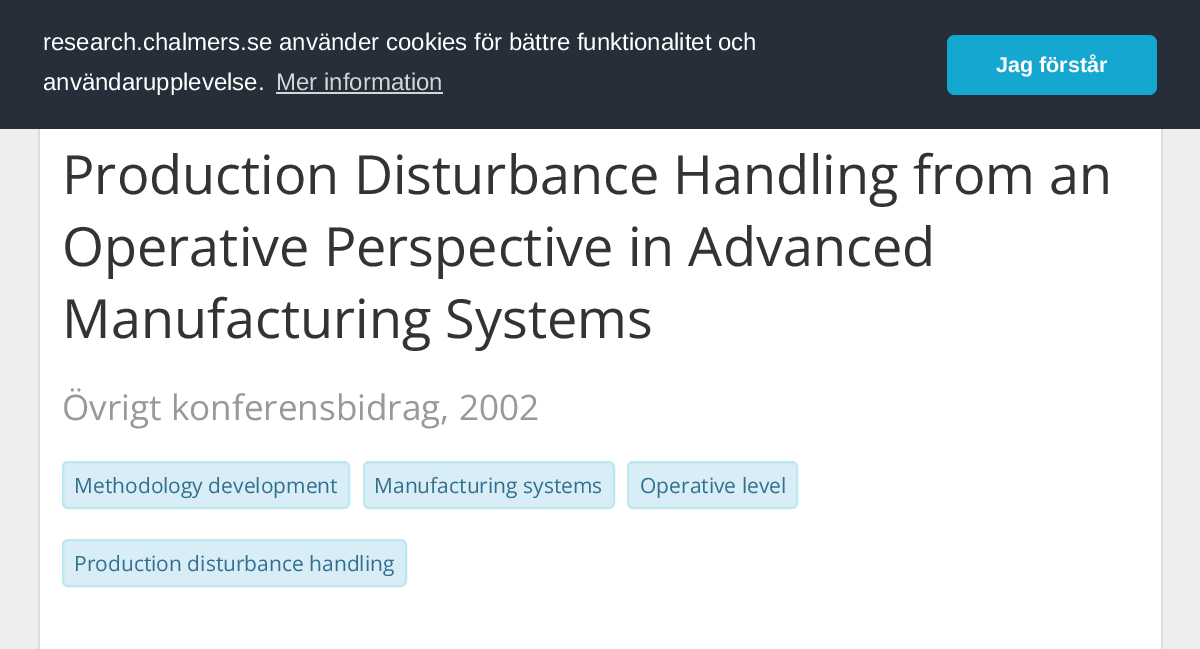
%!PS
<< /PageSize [1200 649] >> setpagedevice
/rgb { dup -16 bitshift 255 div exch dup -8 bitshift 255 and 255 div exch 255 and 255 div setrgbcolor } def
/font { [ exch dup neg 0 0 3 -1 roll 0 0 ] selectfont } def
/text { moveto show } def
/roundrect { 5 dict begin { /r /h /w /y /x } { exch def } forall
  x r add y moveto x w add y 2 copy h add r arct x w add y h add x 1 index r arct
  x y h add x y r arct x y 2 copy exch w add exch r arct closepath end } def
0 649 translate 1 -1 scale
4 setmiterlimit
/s1 { /LiberationSans-Regular 24 font 16#FFFFFF rgb } def
/s2 { /LiberationSans-Regular 24 font 16#D3D5D7 rgb } def
/s3 { /LiberationSans-Bold 21.5 font 16#FFFFFF rgb } def
/s4 { /OpenSans-Regular 54 font 16#333333 rgb } def
/s5 { /OpenSans-Regular 35.1 font 16#999999 rgb } def
/s6 { /OpenSans-Regular 21 font 16#31708F rgb } def
16#EEEEEE rgb
0 0 1200 649 rectfill
16#252E39 rgb
0 0 1200 129 rectfill
s1
(research.chalmers.se använder cookies för bättre funktionalitet och) 43 50 text
(användarupplevelse.) 43 90 text
s2
(Mer information) 276 90 text
276 92 167 2 rectfill
16#14A7D0 rgb
947 35 210 60 8 roundrect fill
s3
(Jag förstår) 996 72 text
40 129 1121 520 rectfill
16#DCDCDC rgb
1161 129 2 520 rectfill
38 129 2 520 rectfill
s4
(Production Disturbance Handling from an) 62 194 text
(Operative Perspective in Advanced) 62 266 text
(Manufacturing Systems) 62 338 text
s5
(Övrigt konferensbidrag, 2002) 62 420 text
16#D9EDF7 rgb
63 462 286 46 5 roundrect gsave fill grestore
16#BCE8F1 rgb
2 setlinewidth
stroke
s6
(Methodology development) 74 493 text
16#D9EDF7 rgb
364 462 250 46 5 roundrect gsave fill grestore
16#BCE8F1 rgb
stroke
s6
(Manufacturing systems) 374 493 text
16#D9EDF7 rgb
628 462 169 46 5 roundrect gsave fill grestore
16#BCE8F1 rgb
stroke
s6
(Operative level) 640 493 text
16#D9EDF7 rgb
63 540 343 46 5 roundrect gsave fill grestore
16#BCE8F1 rgb
stroke
s6
(Production disturbance handling) 74 571 text
showpage
